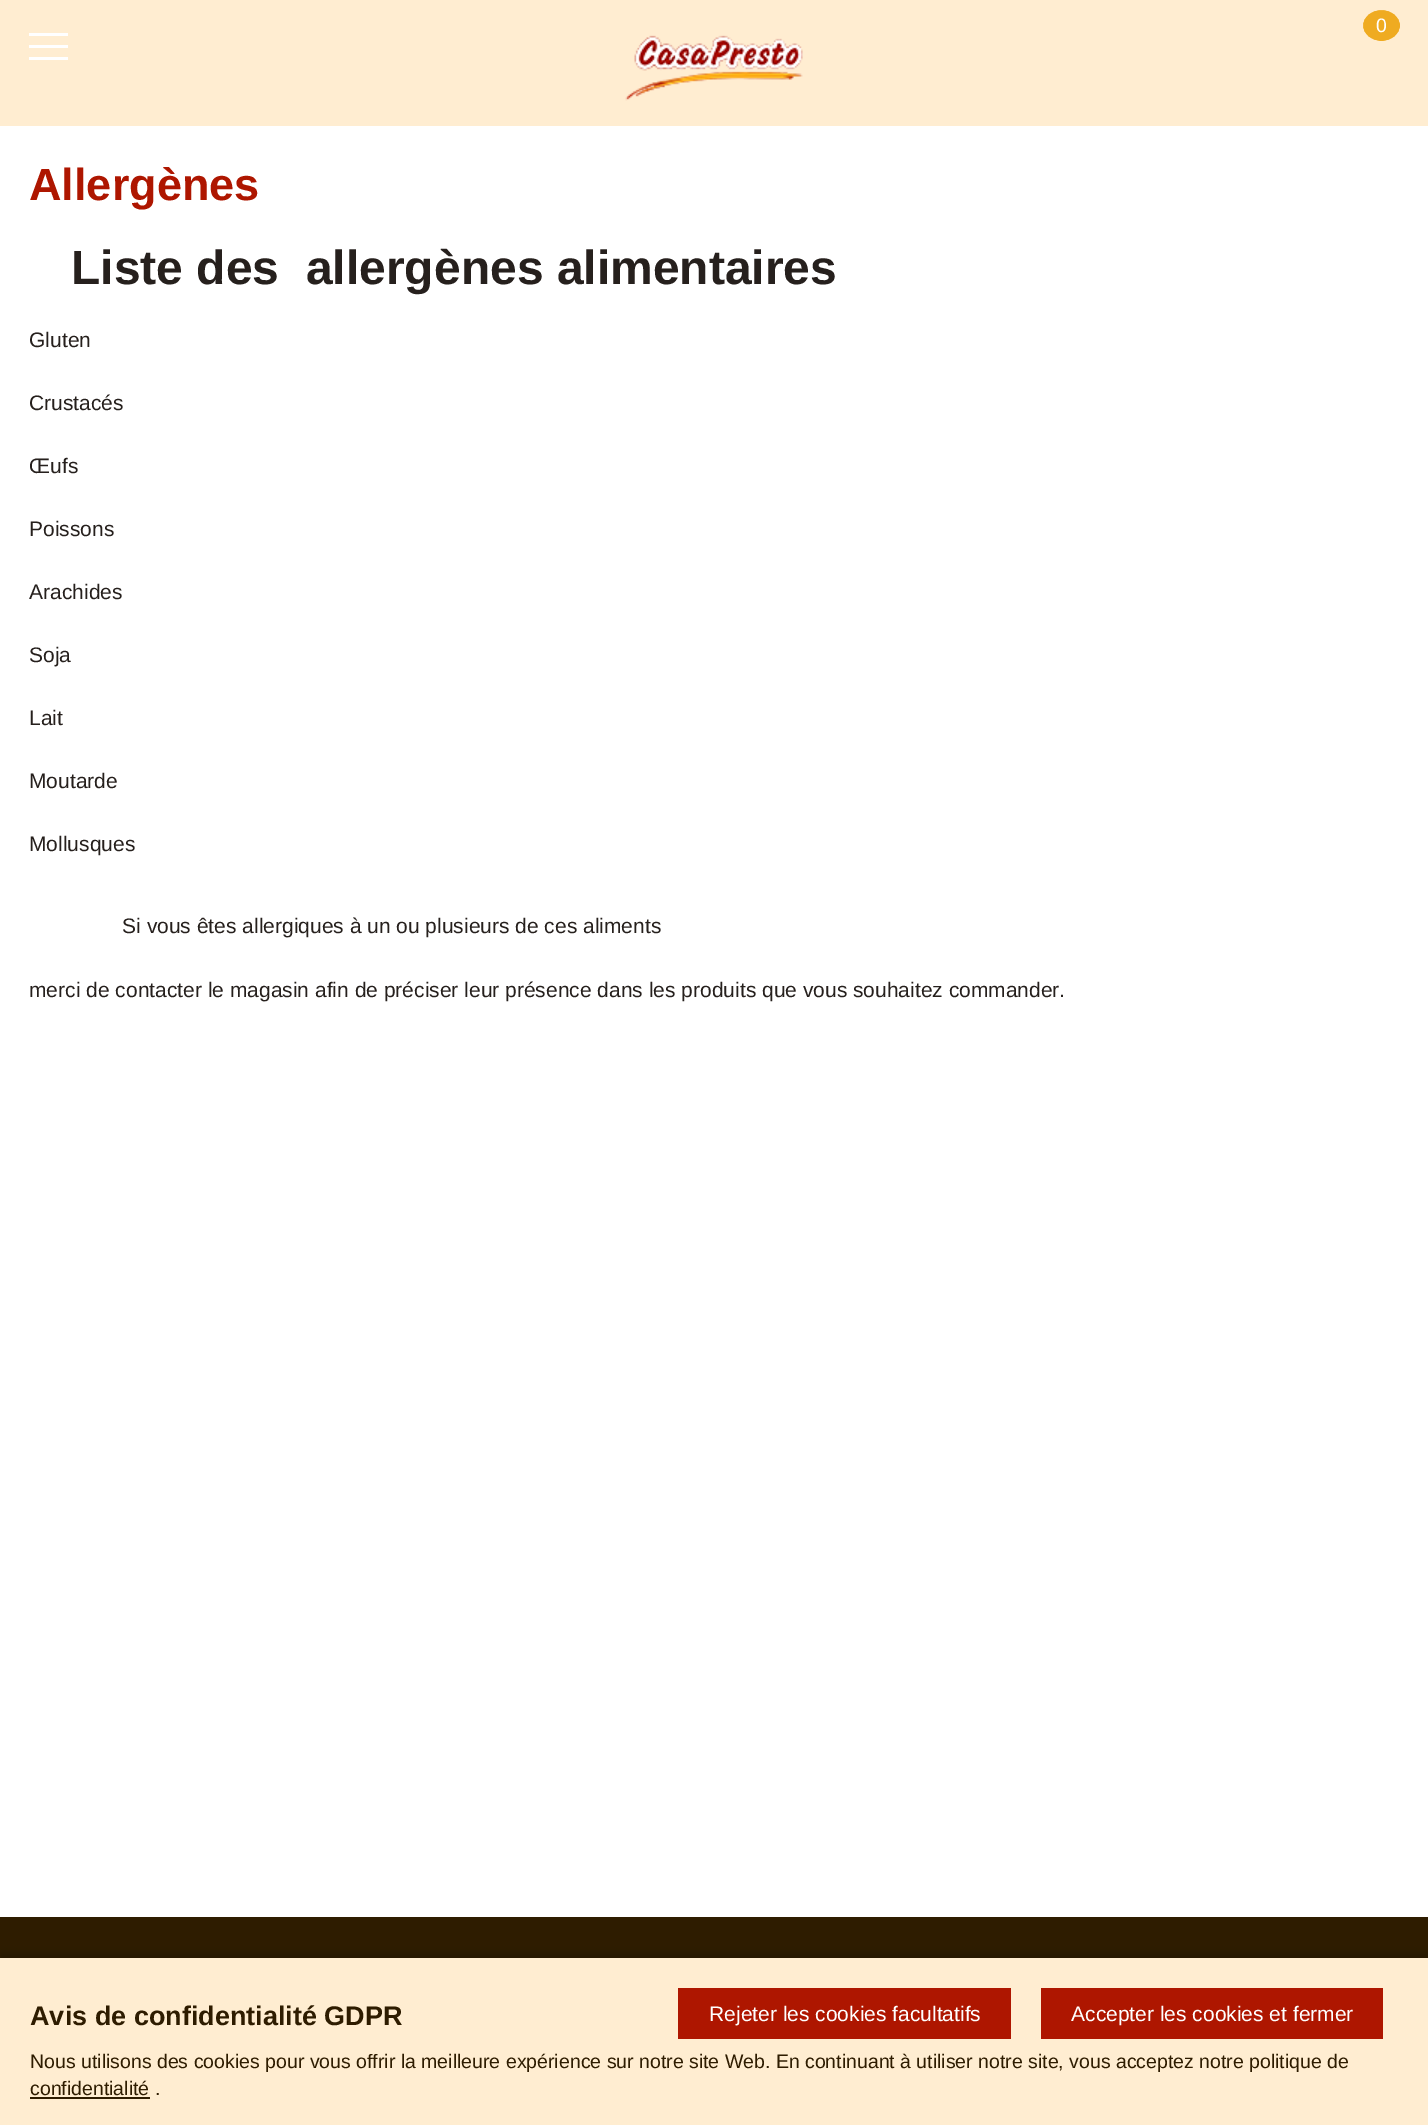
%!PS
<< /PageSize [1428 2125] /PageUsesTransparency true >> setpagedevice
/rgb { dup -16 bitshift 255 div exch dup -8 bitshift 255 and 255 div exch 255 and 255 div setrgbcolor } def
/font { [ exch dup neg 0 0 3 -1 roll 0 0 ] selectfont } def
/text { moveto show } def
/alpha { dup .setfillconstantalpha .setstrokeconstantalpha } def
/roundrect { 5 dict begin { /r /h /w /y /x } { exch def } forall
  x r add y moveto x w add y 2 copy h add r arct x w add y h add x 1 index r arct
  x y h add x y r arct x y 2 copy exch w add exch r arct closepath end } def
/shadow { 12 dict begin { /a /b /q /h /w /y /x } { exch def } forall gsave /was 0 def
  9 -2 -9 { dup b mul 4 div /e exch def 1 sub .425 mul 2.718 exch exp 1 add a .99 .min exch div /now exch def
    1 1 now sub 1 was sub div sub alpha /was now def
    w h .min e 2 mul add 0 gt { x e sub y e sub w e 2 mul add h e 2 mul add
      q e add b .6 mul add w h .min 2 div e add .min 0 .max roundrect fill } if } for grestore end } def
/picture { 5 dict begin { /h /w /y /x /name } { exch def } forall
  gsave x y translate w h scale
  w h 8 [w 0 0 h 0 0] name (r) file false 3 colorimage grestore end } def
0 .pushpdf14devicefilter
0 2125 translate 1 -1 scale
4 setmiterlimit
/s1 { /LiberationSans-Regular 19.5 font 16#FFFFFF rgb } def
/s2 { /LiberationSans-Bold 45 font 16#AE1600 rgb } def
/s3 { /LiberationSans-Bold 48 font 16#26201D rgb } def
/s4 { /LiberationSans-Regular 21 font 16#26201D rgb } def
/s5 { /LiberationSans-Bold 27 font 16#2E1C00 rgb } def
/s6 { /LiberationSans-Regular 21 font 16#FFFFFF rgb } def
/s7 { /LiberationSans-Regular 19.5 font 16#2E1C00 rgb } def
16#FFFFFF rgb
0 0 1428 2125 rectfill
16#FFEDD1 rgb
0 0 1428 126 rectfill
16#EFAB21 rgb
1381.5 10.5 moveto 1391.5 10.5 1399.5 17 1399.5 25.5 curveto 1399.5 34 1391.5 40.5 1381.5 40.5 curveto 1371.5 40.5 1363.5 34 1363.5 25.5 curveto 1363.5 17 1371.5 10.5 1381.5 10.5 curveto closepath fill
1.5 setlinewidth
1381.5 11 moveto 1391 11 1399 17.5 1399 25.5 curveto 1399 33.5 1391 40 1381.5 40 curveto 1372 40 1364 33.5 1364 25.5 curveto 1364 17.5 1372 11 1381.5 11 curveto closepath stroke
s1
(0) 1376 32 text
29 33 39 3 rectfill
29 45 39 3 rectfill
29 57 39 3 rectfill
(pic1.raw) 625 35 178 66 picture
s2
(Allergènes) 29 200 text
s3
(Liste des  allergènes alimentaires) 71 284 text
s4
(Gluten) 29 347 text
(Crustacés) 29 410 text
(Œufs) 29 473 text
(Poissons) 29 536 text
(Arachides) 29 599 text
(Soja) 29 662 text
(Lait) 29 725 text
(Moutarde) 29 788 text
(Mollusques) 29 851 text
(Si vous êtes allergiques à un ou plusieurs de ces aliments) 122 933 text
(merci de contacter le magasin afin de préciser leur présence dans les produits que vous souhaitez commander.) 29 997 text
16#2E1C00 rgb
0 1917 1428 41 rectfill
16#000000 rgb
0 1953 1428 168 0 4.5 0.2 shadow
16#FFEDD1 rgb
0 1958 1428 167 rectfill
s5
(Avis de confidentialité GDPR) 30 2025 text
16#AE1600 rgb
678 1988 333 51 rectfill
s6
(Rejeter les cookies facultatifs) 709 2021 text
16#AE1600 rgb
1041 1988 342 51 rectfill
s6
(Accepter les cookies et fermer) 1071 2021 text
s7
(Nous utilisons des cookies pour vous offrir la meilleure expérience sur notre site Web. En continuant à utiliser notre site, vous acceptez notre politique de) 30 2068 text
(confidentialité .) 30 2095 text
30 2097 120 2 rectfill
.poppdf14devicefilter showpage
